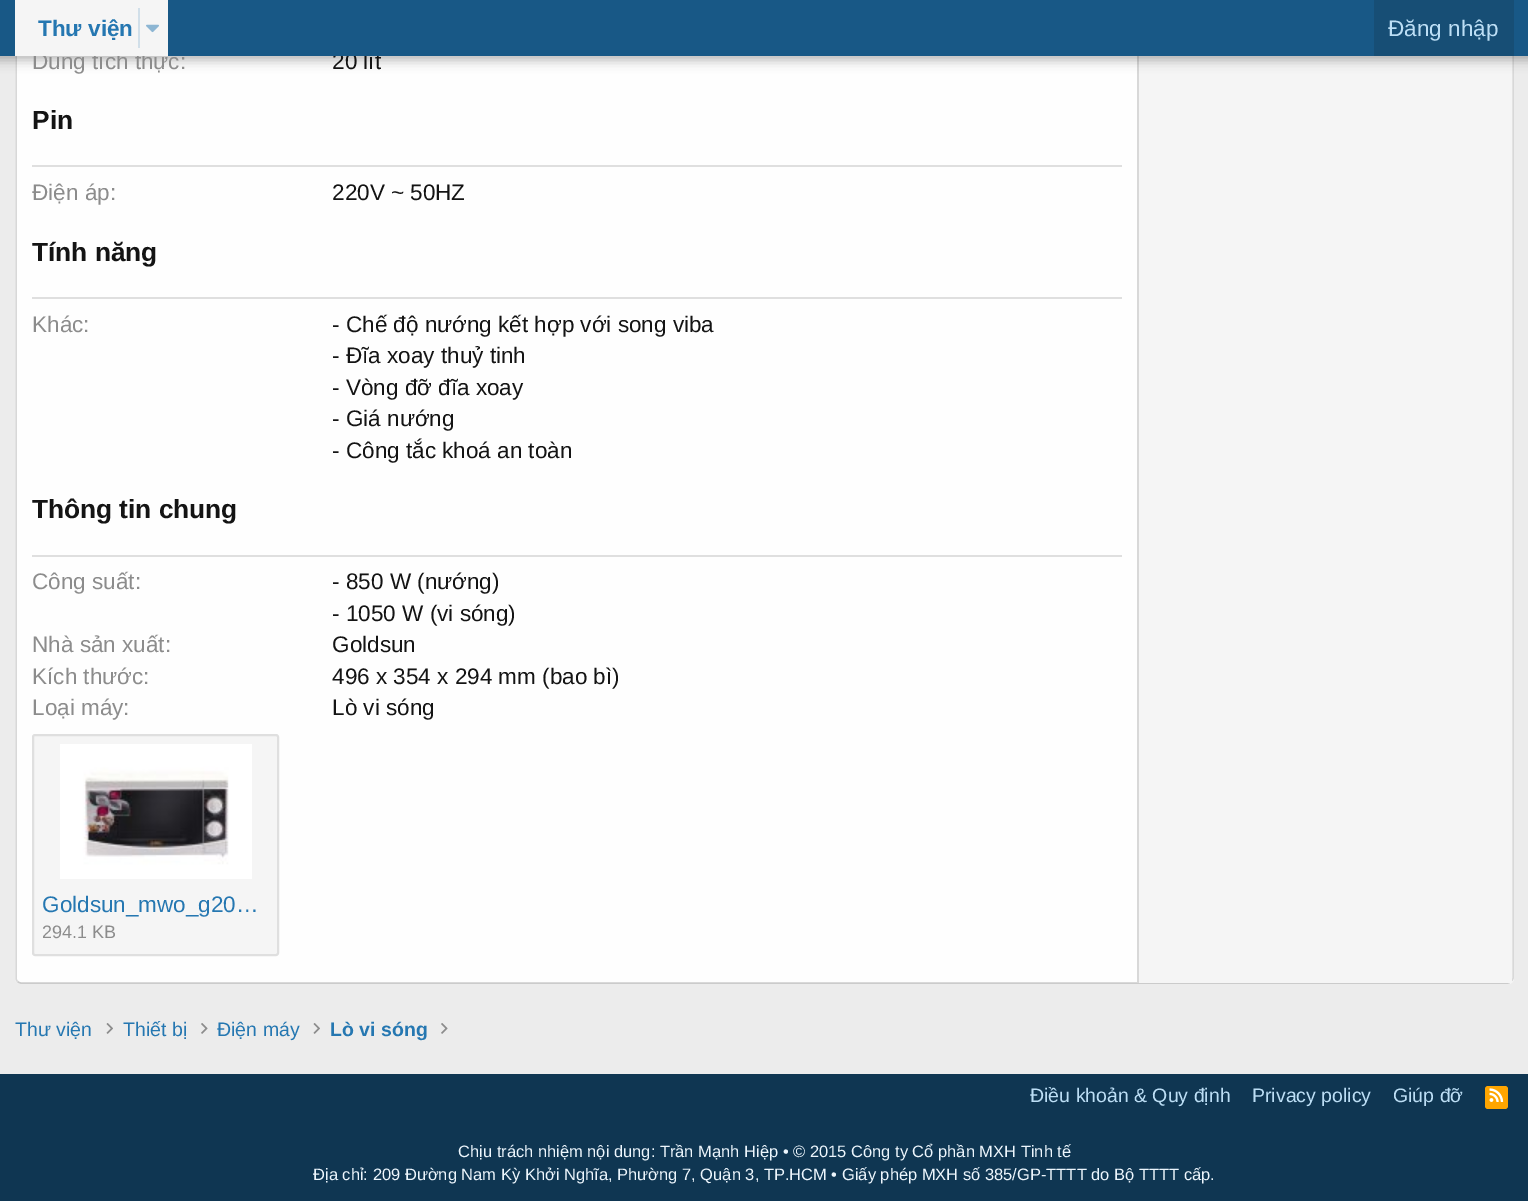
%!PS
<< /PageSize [1528 1201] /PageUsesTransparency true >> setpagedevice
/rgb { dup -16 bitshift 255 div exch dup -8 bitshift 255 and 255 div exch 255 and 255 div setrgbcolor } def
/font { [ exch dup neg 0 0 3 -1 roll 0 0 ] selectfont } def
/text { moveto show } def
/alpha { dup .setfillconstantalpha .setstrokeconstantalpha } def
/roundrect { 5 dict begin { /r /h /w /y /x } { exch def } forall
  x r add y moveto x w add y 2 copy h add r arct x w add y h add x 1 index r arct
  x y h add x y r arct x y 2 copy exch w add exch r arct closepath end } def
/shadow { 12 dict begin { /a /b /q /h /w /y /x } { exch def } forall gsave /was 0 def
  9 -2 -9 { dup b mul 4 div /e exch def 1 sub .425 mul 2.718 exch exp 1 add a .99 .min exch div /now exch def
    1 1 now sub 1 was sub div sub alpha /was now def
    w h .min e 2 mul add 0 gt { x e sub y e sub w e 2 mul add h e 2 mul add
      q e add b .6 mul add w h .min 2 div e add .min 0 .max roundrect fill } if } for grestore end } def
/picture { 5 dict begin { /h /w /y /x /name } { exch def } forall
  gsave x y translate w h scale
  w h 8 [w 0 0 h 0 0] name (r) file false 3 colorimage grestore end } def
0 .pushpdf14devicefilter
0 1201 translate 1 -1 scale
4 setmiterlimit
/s1 { /LiberationSans-Regular 22.5 font 16#8C8C8C rgb } def
/s2 { /LiberationSans-Regular 22.5 font 16#141414 rgb } def
/s3 { /LiberationSans-Bold 22.5 font 16#2577B1 rgb } def
/s4 { /LiberationSans-Regular 22.5 font 16#BCDEF5 rgb } def
/s5 { /LiberationSans-Bold 26.25 font 16#141414 rgb } def
/s6 { /LiberationSans-Regular 22.5 font 16#2577B1 rgb } def
/s7 { /LiberationSans-Regular 18 font 16#8C8C8C rgb } def
/s8 { /LiberationSans-Regular 19.5 font 16#2577B1 rgb } def
/s9 { /LiberationSans-Bold 19.5 font 16#2577B1 rgb } def
/s10 { /LiberationSans-Regular 19.5 font 16#BCDEF5 rgb } def
/s11 { /LiberationSans-Regular 16.5 font 16#EDF6FD rgb } def
16#ECECEC rgb
0 0 1528 1201 rectfill
16#FEFEFE rgb
15 -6 1499 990 6 roundrect fill
16#D8D8D8 rgb
1.5 setlinewidth
1511 -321.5 moveto 1512 -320.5 1513 -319.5 1513 -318 curveto 1513 978 lineto 1513 979.5 1512 980.5 1511 981.5 curveto stroke
16#CBCBCB rgb
1511 981.5 moveto 1510 982.5 1509 983 1507.5 983 curveto 21 983 lineto 19.5 983 18.5 982.5 17.5 981.5 curveto stroke
16#D8D8D8 rgb
17.5 981.5 moveto 16.5 980.5 16 979.5 16 978 curveto 16 -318 lineto 16 -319.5 16.5 -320.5 17.5 -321.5 curveto stroke
16#F5F5F5 rgb
1139 56 373 927 rectfill
16#D8D8D8 rgb
1137 56 2 927 rectfill
16#000000 rgb
-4 -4 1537 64 0 6 0.3 shadow
s1
(Dung tích thực:) 32 69 text
s2
(20 lít) 332 69 text
16#185886 rgb
0 0 1528 56 rectfill
16#F5F5F5 rgb
15 0 153 56 rectfill
s3
(Thư viện) 38 36 text
16#D1DFE9 rgb
138 8 2 40 rectfill
(pic1.raw) 146 24 13 9 picture
16#174E75 rgb
1374 0 140 56 rectfill
s4
(Đăng nhập) 1388 36 text
s5
(Pin) 32 129 text
16#DFDFDF rgb
32 165 1090 2 rectfill
s1
(Điện áp:) 32 200 text
s2
(220V ~ 50HZ) 332 200 text
s5
(Tính năng) 32 261 text
16#DFDFDF rgb
32 297 1090 2 rectfill
s1
(Khác:) 32 332 text
s2
(- Chế độ nướng kết hợp với song viba) 332 332 text
(- Đĩa xoay thuỷ tinh) 332 363 text
(- Vòng đỡ đĩa xoay) 332 395 text
(- Giá nướng) 332 426 text
(- Công tắc khoá an toàn) 332 458 text
s5
(Thông tin chung) 32 518 text
16#DFDFDF rgb
32 555 1090 2 rectfill
s1
(Công suất:) 32 589 text
s2
(- 850 W \(nướng\)) 332 589 text
(- 1050 W \(vi sóng\)) 332 621 text
s1
(Nhà sản xuất:) 32 652 text
s2
(Goldsun) 332 652 text
s1
(Kích thước:) 32 684 text
s2
(496 x 354 x 294 mm \(bao bì\)) 332 684 text
s1
(Loại máy:) 32 715 text
s2
(Lò vi sóng) 332 715 text
16#F5F5F5 rgb
33 735 245 220 2 roundrect gsave fill grestore
16#DFDFDF rgb
2 setlinewidth
stroke
(pic2.raw) 60 744 192 135 picture
s6
(Goldsun_mwo_g20…) 42 912 text
s7
(294.1 KB) 42 938 text
s8
(Thư viện) 15 1036 text
(pic3.raw) 106 1023 7 11 picture
(Thiết bị) 123 1036 text
(pic4.raw) 201 1023 7 11 picture
(Điện máy) 217 1036 text
(pic3.raw) 313 1023 7 11 picture
s9
(Lò vi sóng) 330 1036 text
(pic4.raw) 441 1023 7 11 picture
16#0F3652 rgb
0 1074 1528 127 rectfill
s10
(Điều khoản & Quy định) 1030 1102 text
(Privacy policy) 1252 1102 text
(Giúp đỡ) 1393 1102 text
16#FFA500 rgb
1485 1086 23 23 3 roundrect fill
(pic5.raw) 1489 1088 15 14 picture
s11
(Chịu trách nhiệm nội dung: Trần Mạnh Hiệp • © 2015 Công ty Cổ phần MXH Tinh tế) 458 1157 text
(Địa chỉ: 209 Đường Nam Kỳ Khởi Nghĩa, Phường 7, Quận 3, TP.HCM • Giấy phép MXH số 385/GP-TTTT do Bộ TTTT cấp.) 313 1180 text
.poppdf14devicefilter showpage
